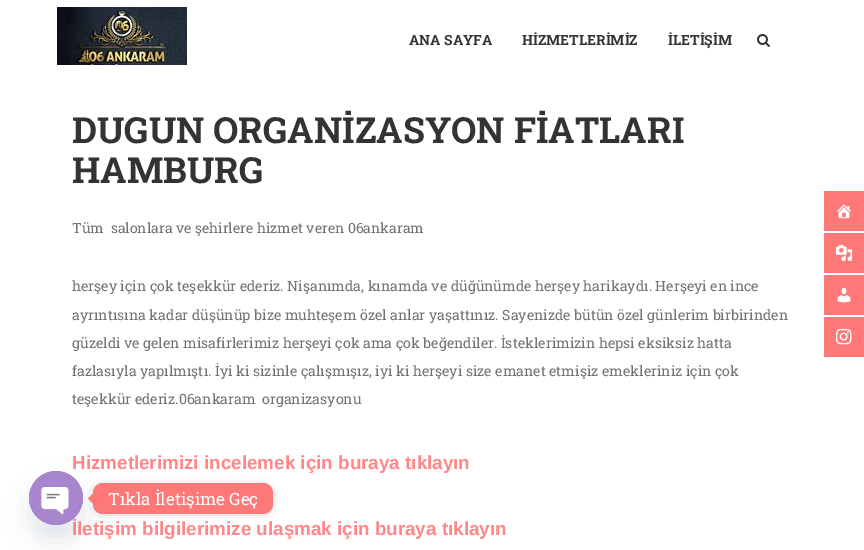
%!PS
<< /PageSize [864 550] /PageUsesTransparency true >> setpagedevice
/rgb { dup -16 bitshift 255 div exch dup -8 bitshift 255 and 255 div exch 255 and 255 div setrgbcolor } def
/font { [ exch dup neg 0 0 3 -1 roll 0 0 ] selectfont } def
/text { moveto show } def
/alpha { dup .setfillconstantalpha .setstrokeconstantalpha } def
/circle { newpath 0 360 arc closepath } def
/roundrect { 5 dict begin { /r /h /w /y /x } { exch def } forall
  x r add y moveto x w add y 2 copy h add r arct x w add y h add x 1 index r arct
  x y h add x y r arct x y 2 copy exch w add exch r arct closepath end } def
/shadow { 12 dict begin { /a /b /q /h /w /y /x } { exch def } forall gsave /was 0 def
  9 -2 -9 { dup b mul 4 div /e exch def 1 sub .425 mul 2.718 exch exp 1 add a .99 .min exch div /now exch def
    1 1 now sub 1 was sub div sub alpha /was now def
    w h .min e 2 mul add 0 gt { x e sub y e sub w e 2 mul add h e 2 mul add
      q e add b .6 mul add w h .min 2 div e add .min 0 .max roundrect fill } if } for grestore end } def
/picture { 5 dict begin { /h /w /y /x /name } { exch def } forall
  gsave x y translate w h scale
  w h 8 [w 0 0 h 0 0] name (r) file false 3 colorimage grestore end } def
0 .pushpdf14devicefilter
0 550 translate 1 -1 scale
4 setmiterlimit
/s1 { /RobotoSlab-Bold 14 font 16#333333 rgb } def
/s2 { /RobotoSlab-Bold 36 font 16#333333 rgb } def
/s3 { /RobotoSlab-Regular 14 font 16#727272 rgb } def
/s4 { /RobotoSlab-Regular 14.15 font 16#727272 rgb } def
/s5 { /LiberationSans-Bold 18.85 font 16#FF8787 rgb } def
/s6 { /RobotoSlab-Regular 17 font 16#FFFFFF rgb } def
16#FFFFFF rgb
0 0 864 550 rectfill
(pic1.raw) 57 7 130 58 picture
s1
(ANA SAYFA) 409 45 text
(HİZMETLERİMİZ) 522 45 text
(İLETİŞİM) 668 45 text
(pic2.raw) 757 34 13 13 picture
s2
(DUGUN ORGANİZASYON FİATLARI) 72 143 text
(HAMBURG) 72 183 text
s3
(Tüm  salonlara ve şehirlere hizmet veren 06ankaram) 72 233 text
s4
(herşey için çok teşekkür ederiz. Nişanımda, kınamda ve düğünümde herşey harikaydı. Herşeyi en ince) 72 291 text
(ayrıntısına kadar düşünüp bize muhteşem özel anlar yaşattınız. Sayenizde bütün özel günlerim birbirinden) 72 320 text
(güzeldi ve gelen misafirlerimiz herşeyi çok ama çok beğendiler. İsteklerimizin hepsi eksiksiz hatta) 72 348 text
(fazlasıyla yapılmıştı. İyi ki sizinle çalışmışız, iyi ki herşeyi size emanet etmişiz emekleriniz için çok) 72 376 text
(teşekkür ederiz.06ankaram) 72 404 text
(organizasyonu) 262 404 text
s5
(Hizmetlerimizi incelemek için buraya tıklayın) 72 469 text
(İletişim bilgilerimize ulaşmak için buraya tıklayın) 72 535 text
16#FF7878 rgb
824 191 40 40 rectfill
(pic3.raw) 837 204 14 15 picture
824 233 40 40 rectfill
(pic4.raw) 835 244 18 18 picture
824 275 40 40 rectfill
(pic5.raw) 837 287 14 16 picture
824 317 40 40 rectfill
(pic6.raw) 836 328 16 17 picture
16#000000 rgb
93 484 180 31 10 4 0.15 shadow
16#FF7878 rgb
93 483 180 31 10 roundrect fill
93 493.5 moveto 93 503.5 lineto 88 498.5 lineto closepath fill
16#49687E rgb
29 487 54 54 27 12 0.16 shadow
16#A886CD rgb
56 498 27 circle fill
(pic7.raw) 29 471 54 54 picture
s6
(Tıkla İletişime Geç) 108 505 text
.poppdf14devicefilter showpage
